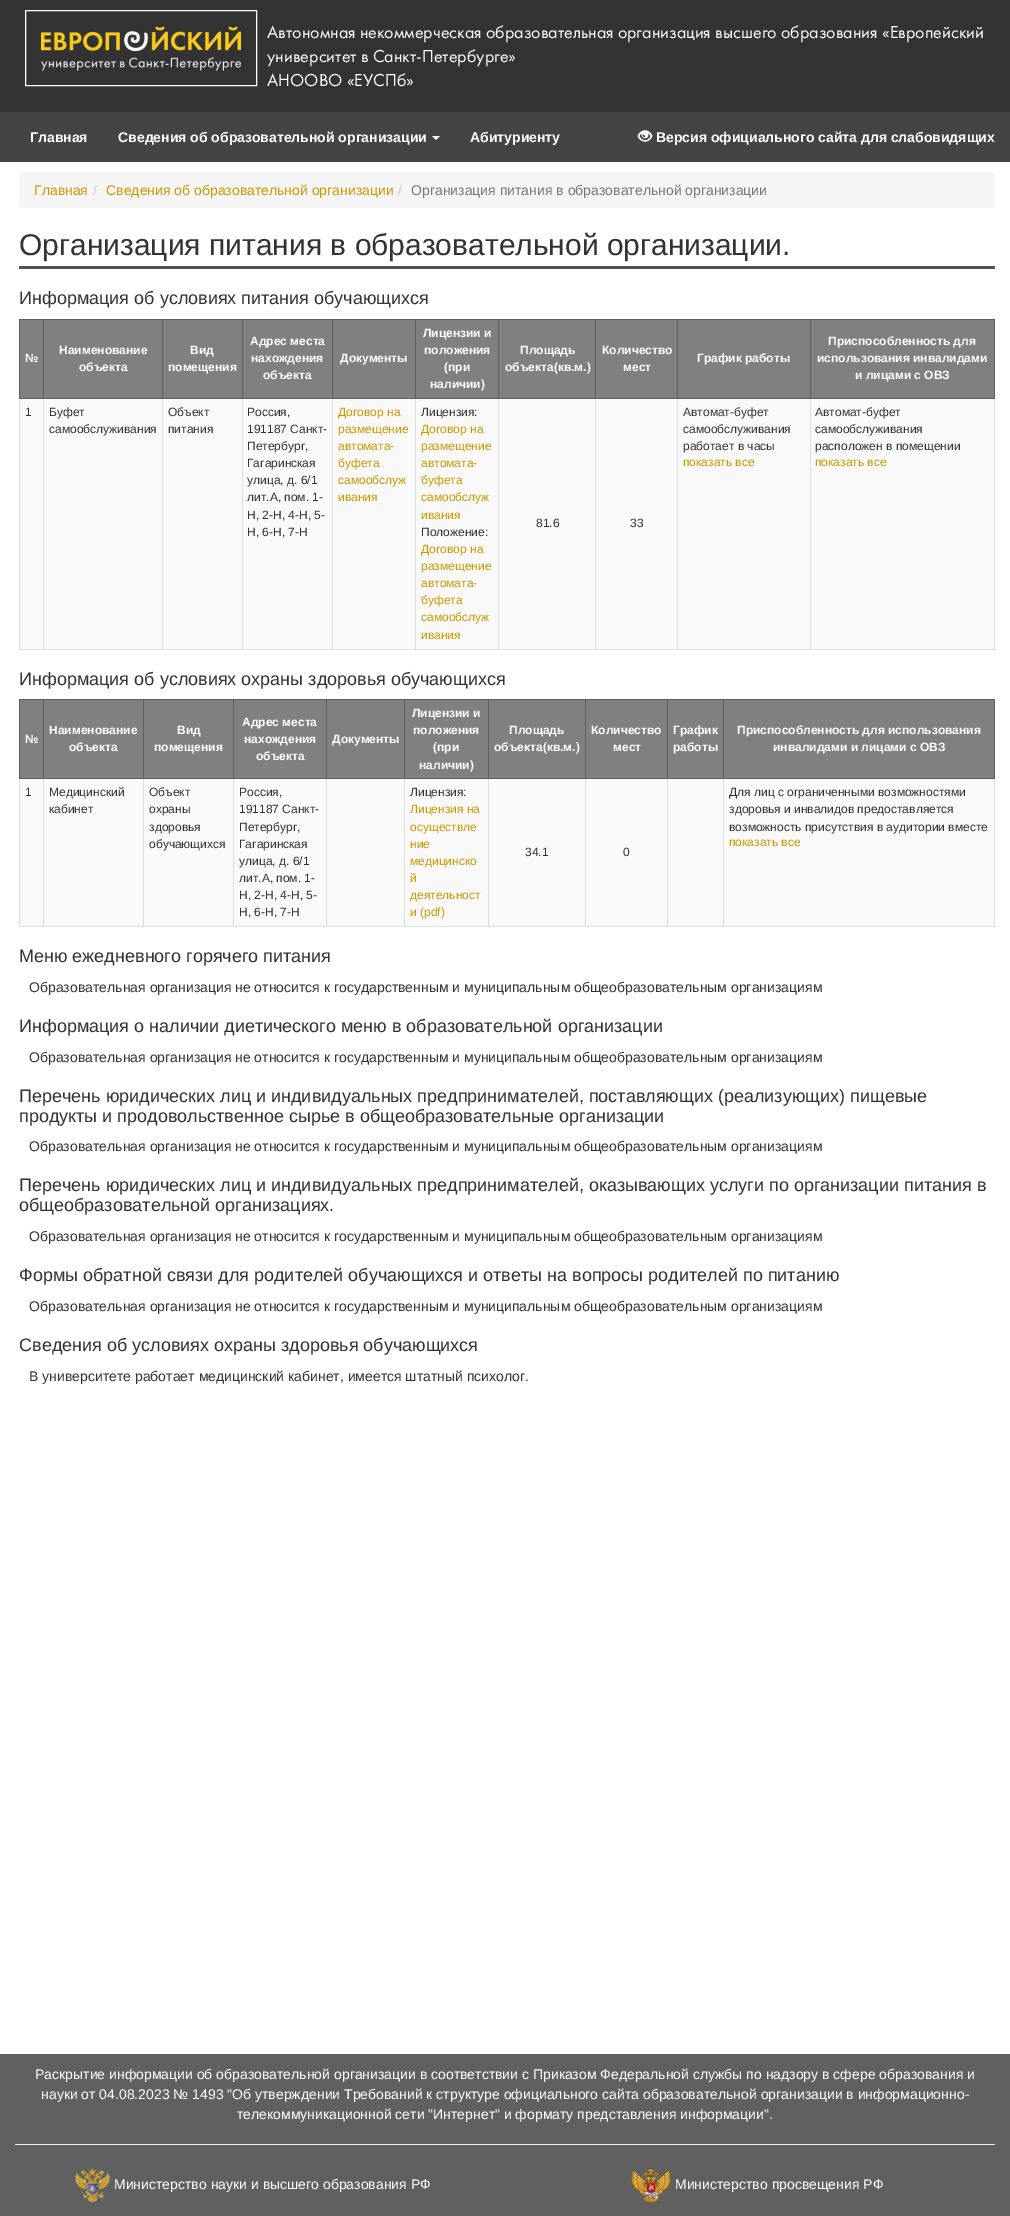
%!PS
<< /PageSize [1010 2216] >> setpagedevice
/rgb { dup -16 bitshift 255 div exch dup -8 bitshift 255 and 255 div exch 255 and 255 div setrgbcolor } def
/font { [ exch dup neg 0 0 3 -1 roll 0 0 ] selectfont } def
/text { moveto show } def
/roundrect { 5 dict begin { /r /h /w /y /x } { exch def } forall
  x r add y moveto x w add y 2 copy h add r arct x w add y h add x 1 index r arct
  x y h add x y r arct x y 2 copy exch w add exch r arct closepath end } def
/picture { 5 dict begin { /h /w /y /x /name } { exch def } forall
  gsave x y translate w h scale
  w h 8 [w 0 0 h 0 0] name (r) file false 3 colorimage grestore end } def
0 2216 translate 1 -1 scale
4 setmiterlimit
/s1 { /FuturaPT-Regular 18 font 16#FFFFFF rgb } def
/s2 { /LiberationSans-Bold 14 font 16#FFFFFF rgb } def
/s3 { /LiberationSans-Regular 14 font 16#CC9900 rgb } def
/s4 { /LiberationSans-Regular 14 font 16#CCCCCC rgb } def
/s5 { /LiberationSans-Regular 14 font 16#777777 rgb } def
/s6 { /LiberationSans-Regular 30 font 16#333333 rgb } def
/s7 { /LiberationSans-Regular 18 font 16#333333 rgb } def
/s8 { /LiberationSans-Bold 12 font 16#FFFFFF rgb } def
/s9 { /LiberationSans-Regular 12 font 16#333333 rgb } def
/s10 { /LiberationSans-Regular 12 font 16#CC9900 rgb } def
/s11 { /LiberationSans-Regular 14 font 16#333333 rgb } def
/s12 { /LiberationSans-Regular 14 font 16#FFFFFF rgb } def
16#FFFFFF rgb
0 0 1010 2216 rectfill
16#333333 rgb
0 0 1010 112 rectfill
16#FFFFFF rgb
25.5 10.5 231 75 rectstroke
(pic1.raw) 41 26 200 45 picture
s1
(Автономная некоммерческая образовательная организация высшего образования «Европейский) 267 38 text
(университет в Санкт-Петербурге») 267 62 text
(АНООВО «ЕУСПб») 267 86 text
16#444444 rgb
0 112 1010 50 rectfill
s2
(Главная) 30 142 text
(Сведения об образовательной организации) 118 142 text
432 136 moveto 440 136 lineto 436 140 lineto closepath fill
(Абитуриенту) 470 142 text
(pic2.raw) 637 130 16 12 picture
(Версия официального сайта для слабовидящих) 656 142 text
16#F5F5F5 rgb
19 172 976 36 4 roundrect fill
s3
(Главная) 34 195 text
s4
(/) 93 195 text
s3
(Сведения об образовательной организации) 106 195 text
s4
(/) 398 195 text
s5
(Организация питания в образовательной организации) 411 195 text
16#515151 rgb
19 266 976 3 rectfill
s6
(Организация питания в образовательной организации.) 19 255 text
s7
(Информация об условиях питания обучающихся) 19 304 text
16#DDDDDD rgb
994 399 1 251 rectfill
19 649 976 1 rectfill
19 399 1 251 rectfill
16#808080 rgb
20 320 23 78 rectfill
16#606060 rgb
810 319 185 1 rectfill
994 319 1 80 rectfill
16#F9F9F9 rgb
20 399 974 250 rectfill
16#DDDDDD rgb
810 398 1 252 rectfill
16#606060 rgb
810 398 185 1 rectfill
810 319 1 80 rectfill
677 319 134 1 rectfill
16#DDDDDD rgb
677 398 1 252 rectfill
16#606060 rgb
677 398 134 1 rectfill
677 319 1 80 rectfill
595 319 83 1 rectfill
16#DDDDDD rgb
595 398 1 252 rectfill
16#606060 rgb
595 398 83 1 rectfill
595 319 1 80 rectfill
498 319 98 1 rectfill
16#DDDDDD rgb
498 398 1 252 rectfill
16#606060 rgb
498 398 98 1 rectfill
498 319 1 80 rectfill
415 319 84 1 rectfill
16#DDDDDD rgb
415 398 1 252 rectfill
16#606060 rgb
415 398 84 1 rectfill
415 319 1 80 rectfill
332 319 84 1 rectfill
16#DDDDDD rgb
332 398 1 252 rectfill
16#606060 rgb
332 398 84 1 rectfill
332 319 1 80 rectfill
242 319 91 1 rectfill
16#DDDDDD rgb
242 398 1 252 rectfill
16#606060 rgb
242 398 91 1 rectfill
242 319 1 80 rectfill
162 319 81 1 rectfill
16#DDDDDD rgb
162 398 1 252 rectfill
16#606060 rgb
162 398 81 1 rectfill
162 319 1 80 rectfill
43 319 120 1 rectfill
16#DDDDDD rgb
43 398 1 252 rectfill
16#606060 rgb
43 398 120 1 rectfill
43 319 1 80 rectfill
19 319 25 1 rectfill
19 398 25 1 rectfill
19 319 1 80 rectfill
s8
(№) 25 362 text
16#808080 rgb
44 320 118 78 rectfill
s8
(Наименование) 59 354 text
(объекта) 79 371 text
16#808080 rgb
163 320 79 78 rectfill
s8
(Вид) 190 354 text
(помещения) 168 371 text
16#808080 rgb
243 320 89 78 rectfill
s8
(Адрес места) 250 345 text
(нахождения) 251 362 text
(объекта) 263 379 text
16#808080 rgb
333 320 82 78 rectfill
s8
(Документы) 340 362 text
16#808080 rgb
416 320 82 78 rectfill
s8
(Лицензии и) 423 337 text
(положения) 424 354 text
(\(при) 444 371 text
(наличии\)) 430 388 text
16#808080 rgb
499 320 96 78 rectfill
s8
(Площадь) 520 354 text
(объекта\(кв.м.\)) 505 371 text
16#808080 rgb
596 320 81 78 rectfill
s8
(Количество) 602 354 text
(мест) 623 371 text
16#808080 rgb
678 320 132 78 rectfill
s8
(График работы) 697 362 text
16#808080 rgb
811 320 183 78 rectfill
s8
(Приспособленность для) 828 345 text
(использования инвалидами) 817 362 text
(и лицами с ОВЗ) 855 379 text
s9
(1) 25 416 text
(Буфет) 49 416 text
(самообслуживания) 49 433 text
(Объект) 168 416 text
(питания) 168 433 text
(Россия,) 247 416 text
(191187 Санкт-) 247 433 text
(Петербург,) 247 450 text
(Гагаринская) 247 467 text
(улица, д. 6/1) 247 484 text
(лит.А, пом. 1-) 247 501 text
(Н, 2-Н, 4-Н, 5-) 247 519 text
(Н, 6-Н, 7-Н) 247 536 text
s10
(Договор на) 338 416 text
(размещение) 338 433 text
(автомата-) 338 450 text
(буфета) 338 467 text
(самообслуж) 338 484 text
(ивания) 338 501 text
s9
(Лицензия:) 421 416 text
s10
(Договор на) 421 433 text
(размещение) 421 450 text
(автомата-) 421 467 text
(буфета) 421 484 text
(самообслуж) 421 501 text
(ивания) 421 519 text
s9
(Положение:) 421 536 text
s10
(Договор на) 421 553 text
(размещение) 421 570 text
(автомата-) 421 587 text
(буфета) 421 604 text
(самообслуж) 421 621 text
(ивания) 421 639 text
s9
(Автомат-буфет) 683 416 text
(самообслуживания) 683 433 text
(работает в часы) 683 450 text
s10
(показать все) 683 466 text
s9
(Автомат-буфет) 815 416 text
(самообслуживания) 815 433 text
(расположен в помещении) 815 450 text
s10
(показать все) 815 466 text
s9
(81.6) 536 527 text
(33) 630 527 text
s7
(Информация об условиях охраны здоровья обучающихся) 19 685 text
16#DDDDDD rgb
994 779 1 148 rectfill
19 926 976 1 rectfill
19 779 1 148 rectfill
16#808080 rgb
20 700 23 78 rectfill
16#606060 rgb
723 699 272 1 rectfill
994 699 1 80 rectfill
16#F9F9F9 rgb
20 779 974 147 rectfill
16#DDDDDD rgb
723 778 1 149 rectfill
16#606060 rgb
723 778 272 1 rectfill
723 699 1 80 rectfill
667 699 57 1 rectfill
16#DDDDDD rgb
667 778 1 149 rectfill
16#606060 rgb
667 778 57 1 rectfill
667 699 1 80 rectfill
585 699 83 1 rectfill
16#DDDDDD rgb
585 778 1 149 rectfill
16#606060 rgb
585 778 83 1 rectfill
585 699 1 80 rectfill
488 699 98 1 rectfill
16#DDDDDD rgb
488 778 1 149 rectfill
16#606060 rgb
488 778 98 1 rectfill
488 699 1 80 rectfill
404 699 85 1 rectfill
16#DDDDDD rgb
404 778 1 149 rectfill
16#606060 rgb
404 778 85 1 rectfill
404 699 1 80 rectfill
326 699 79 1 rectfill
16#DDDDDD rgb
326 778 1 149 rectfill
16#606060 rgb
326 778 79 1 rectfill
326 699 1 80 rectfill
233 699 94 1 rectfill
16#DDDDDD rgb
233 778 1 149 rectfill
16#606060 rgb
233 778 94 1 rectfill
233 699 1 80 rectfill
143 699 91 1 rectfill
16#DDDDDD rgb
143 778 1 149 rectfill
16#606060 rgb
143 778 91 1 rectfill
143 699 1 80 rectfill
43 699 101 1 rectfill
16#DDDDDD rgb
43 778 1 149 rectfill
16#606060 rgb
43 778 101 1 rectfill
43 699 1 80 rectfill
19 699 25 1 rectfill
19 778 25 1 rectfill
19 699 1 80 rectfill
s8
(№) 25 743 text
16#808080 rgb
44 700 99 78 rectfill
s8
(Наименование) 49 734 text
(объекта) 69 751 text
16#808080 rgb
144 700 89 78 rectfill
s8
(Вид) 177 734 text
(помещения) 154 751 text
16#808080 rgb
234 700 92 78 rectfill
s8
(Адрес места) 242 726 text
(нахождения) 244 743 text
(объекта) 256 760 text
16#808080 rgb
327 700 77 78 rectfill
s8
(Документы) 332 743 text
16#808080 rgb
405 700 83 78 rectfill
s8
(Лицензии и) 412 717 text
(положения) 413 734 text
(\(при) 433 751 text
(наличии\)) 419 769 text
16#808080 rgb
489 700 96 78 rectfill
s8
(Площадь) 509 734 text
(объекта\(кв.м.\)) 494 751 text
16#808080 rgb
586 700 81 78 rectfill
s8
(Количество) 591 734 text
(мест) 613 751 text
16#808080 rgb
668 700 55 78 rectfill
s8
(График) 673 734 text
(работы) 673 751 text
16#808080 rgb
724 700 270 78 rectfill
s8
(Приспособленность для использования) 737 734 text
(инвалидами и лицами с ОВЗ) 773 751 text
s9
(1) 25 796 text
(Медицинский) 49 796 text
(кабинет) 49 813 text
(Объект) 149 796 text
(охраны) 149 813 text
(здоровья) 149 831 text
(обучающихся) 149 848 text
(Россия,) 239 796 text
(191187 Санкт-) 239 813 text
(Петербург,) 239 831 text
(Гагаринская) 239 848 text
(улица, д. 6/1) 239 865 text
(лит.А, пом. 1-) 239 882 text
(Н, 2-Н, 4-Н, 5-) 239 899 text
(Н, 6-Н, 7-Н) 239 916 text
(Лицензия:) 410 796 text
s10
(Лицензия на) 410 813 text
(осуществле) 410 831 text
(ние) 410 848 text
(медицинско) 410 865 text
(й) 410 882 text
(деятельност) 410 899 text
(и \(pdf\)) 410 916 text
s9
(Для лиц с ограниченными возможностями) 729 796 text
(здоровья и инвалидов предоставляется) 729 813 text
(возможность присутствия в аудитории вместе) 729 831 text
s10
(показать все) 729 846 text
s9
(34.1) 525 856 text
(0) 623 856 text
s7
(Меню ежедневного горячего питания) 19 962 text
s11
(Образовательная организация не относится к государственным и муниципальным общеобразовательным организациям) 29 992 text
s7
(Информация о наличии диетического меню в образовательной организации) 19 1032 text
s11
(Образовательная организация не относится к государственным и муниципальным общеобразовательным организациям) 29 1062 text
s7
(Перечень юридических лиц и индивидуальных предпринимателей, поставляющих \(реализующих\) пищевые) 19 1102 text
(продукты и продовольственное сырье в общеобразовательные организации) 19 1122 text
s11
(Образовательная организация не относится к государственным и муниципальным общеобразовательным организациям) 29 1151 text
s7
(Перечень юридических лиц и индивидуальных предпринимателей, оказывающих услуги по организации питания в) 19 1191 text
(общеобразовательной организациях.) 19 1211 text
s11
(Образовательная организация не относится к государственным и муниципальным общеобразовательным организациям) 29 1241 text
s7
(Формы обратной связи для родителей обучающихся и ответы на вопросы родителей по питанию) 19 1281 text
s11
(Образовательная организация не относится к государственным и муниципальным общеобразовательным организациям) 29 1311 text
s7
(Сведения об условиях охраны здоровья обучающихся) 19 1351 text
s11
(В университете работает медицинский кабинет, имеется штатный психолог.) 29 1381 text
16#606060 rgb
0 2054 1010 162 rectfill
s12
(Раскрытие информации об образовательной организации в соответствии с Приказом Федеральной службы по надзору в сфере образования и) 35 2079 text
(науки от 04.08.2023 № 1493 "Об утверждении Требований к структуре официального сайта образовательной организации в информационно-) 41 2099 text
(телекоммуникационной сети "Интернет" и формату представления информации".) 237 2119 text
16#EEEEEE rgb
15 2144 980 1 rectfill
(pic3.raw) 75 2168 35 35 picture
s12
(Министерство науки и высшего образования РФ) 114 2189 text
(pic4.raw) 631 2168 40 35 picture
(Министерство просвещения РФ) 675 2189 text
showpage
